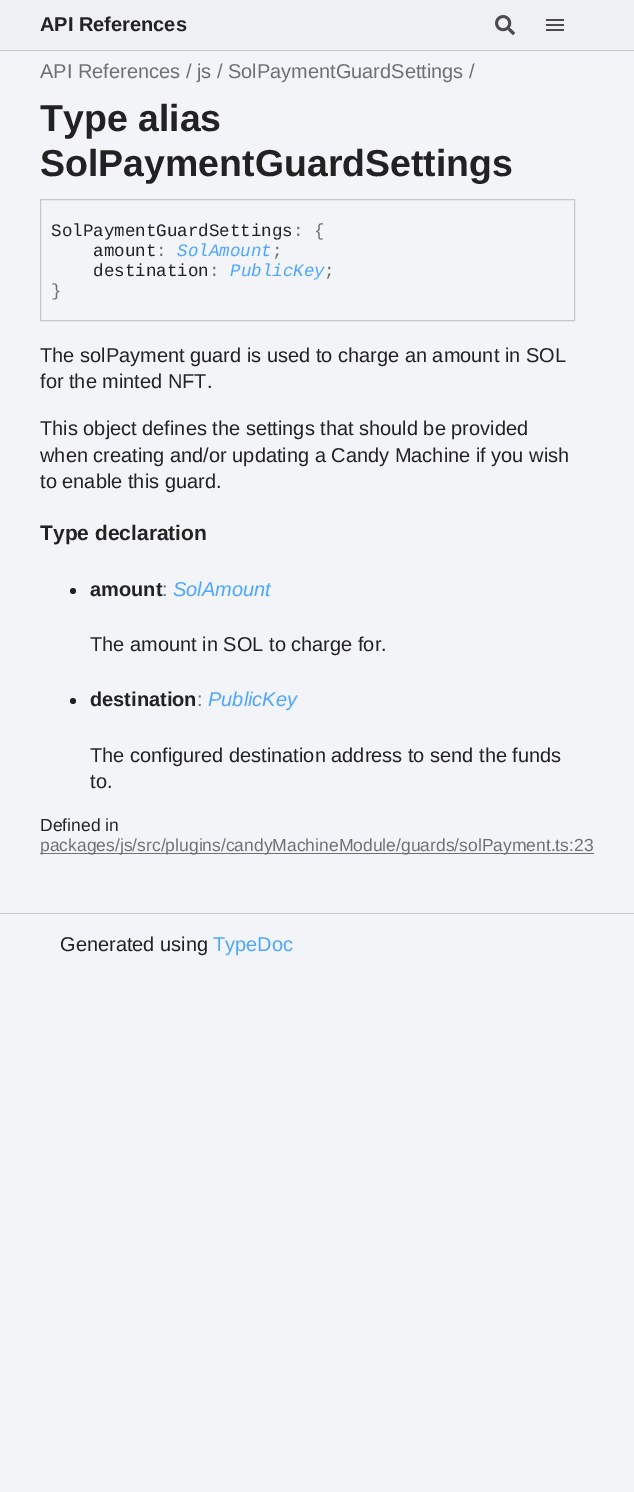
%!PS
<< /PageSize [634 1492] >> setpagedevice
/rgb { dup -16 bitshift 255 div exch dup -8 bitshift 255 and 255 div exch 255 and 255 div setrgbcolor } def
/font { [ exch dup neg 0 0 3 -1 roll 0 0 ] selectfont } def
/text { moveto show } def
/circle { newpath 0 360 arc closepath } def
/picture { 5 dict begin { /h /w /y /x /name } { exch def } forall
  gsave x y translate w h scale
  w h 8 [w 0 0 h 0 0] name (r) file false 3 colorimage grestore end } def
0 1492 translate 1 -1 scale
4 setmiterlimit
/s1 { /LiberationSans-Bold 20 font 16#222222 rgb } def
/s2 { /LiberationSans-Regular 20 font 16#707070 rgb } def
/s3 { /LiberationSans-Bold 37.5 font 16#222222 rgb } def
/s4 { /LiberationMono-Regular 17.5 font 16#222222 rgb } def
/s5 { /LiberationMono-Regular 17.5 font 16#707070 rgb } def
/s6 { /LiberationMono-Italic 17.5 font 16#4DA6FF rgb } def
/s7 { /LiberationSans-Regular 20 font 16#222222 rgb } def
/s8 { /LiberationSans-Bold 21 font 16#222222 rgb } def
/s9 { /LiberationSans-Italic 20 font 16#4DA6FF rgb } def
/s10 { /LiberationSans-Regular 17.5 font 16#222222 rgb } def
/s11 { /LiberationSans-Regular 17.5 font 16#707070 rgb } def
/s12 { /LiberationSans-Regular 20 font 16#4DA6FF rgb } def
16#F2F4F8 rgb
0 0 634 1492 rectfill
16#EFF0F1 rgb
0 0 634 50 rectfill
16#C5C7C9 rgb
0 50 634 1 rectfill
s1
(API References) 40 31 text
(pic1.raw) 495 15 20 20 picture
16#4B4B4B rgb
546 19 18 2 rectfill
546 24 18 2 rectfill
546 29 18 2 rectfill
s2
(API References / js / SolPaymentGuardSettings /) 40 78 text
s3
(Type alias) 40 131 text
(SolPaymentGuardSettings) 40 176 text
16#C5C7C9 rgb
40.5 199.5 534 121 rectstroke
s4
(SolPaymentGuardSettings) 51 236 text
s5
(: {) 293 236 text
s4
(amount) 93 256 text
s5
(:) 156 256 text
s6
(SolAmount) 177 256 text
s5
(;) 272 256 text
s4
(destination) 93 276 text
s5
(:) 209 276 text
s6
(PublicKey) 230 276 text
s5
(;) 324 276 text
(}) 51 296 text
s7
(The solPayment guard is used to charge an amount in SOL) 40 362 text
(for the minted NFT.) 40 388 text
(This object defines the settings that should be provided) 40 435 text
(when creating and/or updating a Candy Machine if you wish) 40 462 text
(to enable this guard.) 40 488 text
s8
(Type declaration) 40 540 text
73 591 3 circle fill
s1
(amount) 90 596 text
s2
(:) 162 596 text
s9
(SolAmount) 173 596 text
s7
(The amount in SOL to charge for.) 90 651 text
73 701 3 circle fill
s1
(destination) 90 706 text
s2
(:) 197 706 text
s9
(PublicKey) 208 706 text
s7
(The configured destination address to send the funds) 90 762 text
(to.) 90 788 text
s10
(Defined in) 40 831 text
16#707070 rgb
40 853 554 1 rectfill
(packages/js/src/plugins/candyMachineModule/guards/solPayment.ts:23) 40 851 text
16#C5C7C9 rgb
0 913 634 1 rectfill
s7
(Generated using) 60 951 text
s12
(TypeDoc) 213 951 text
showpage
